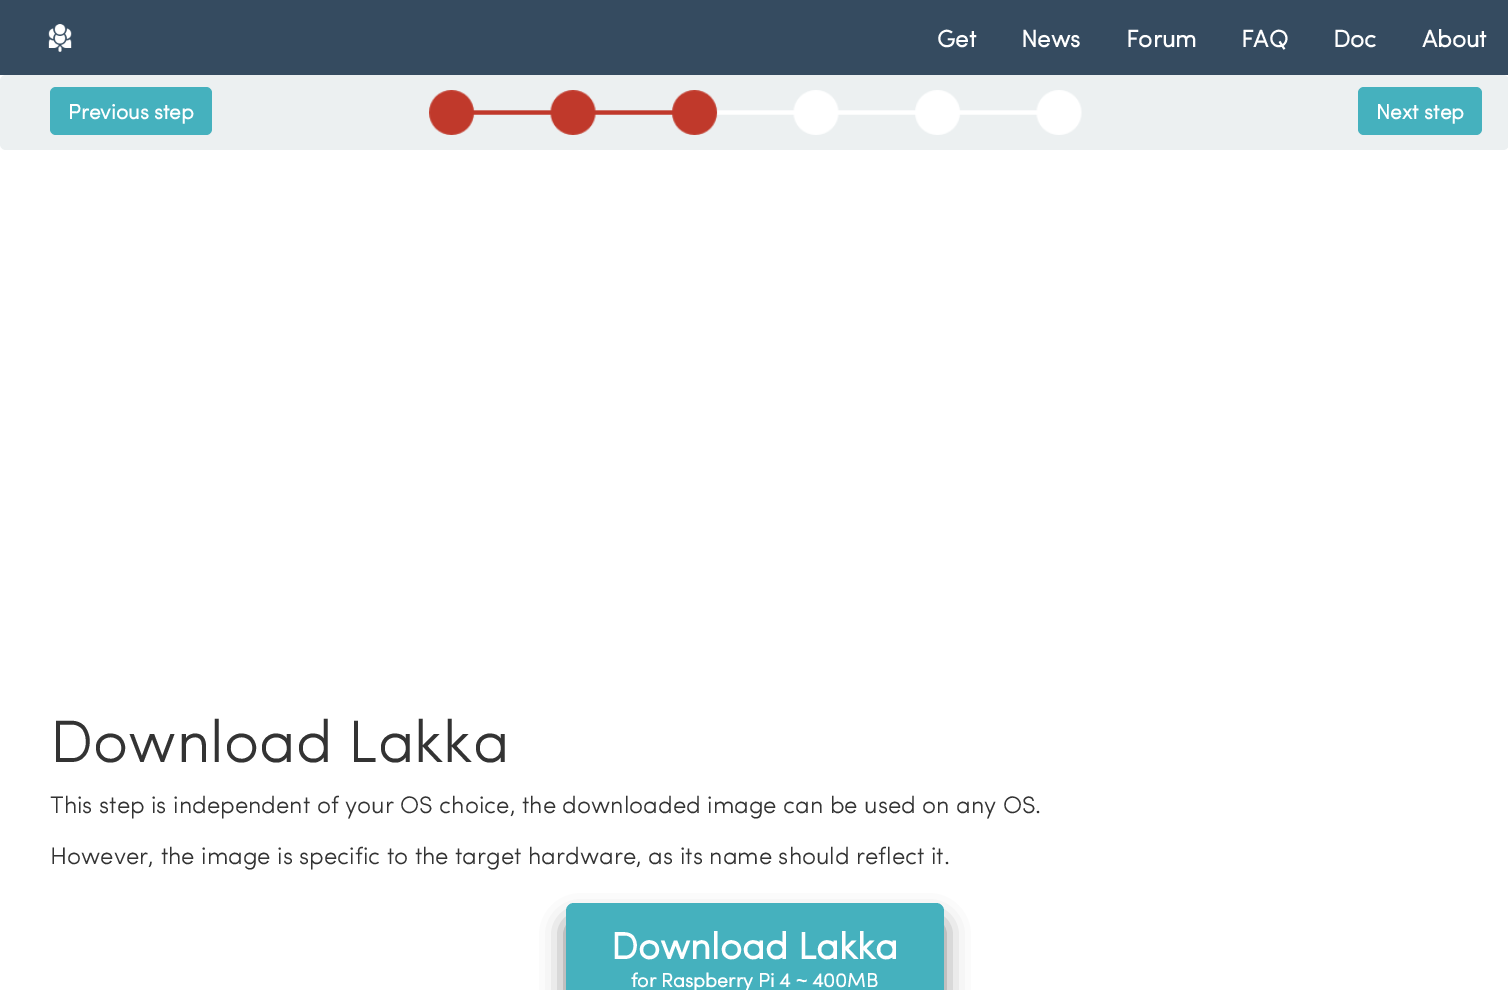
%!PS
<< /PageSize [1508 990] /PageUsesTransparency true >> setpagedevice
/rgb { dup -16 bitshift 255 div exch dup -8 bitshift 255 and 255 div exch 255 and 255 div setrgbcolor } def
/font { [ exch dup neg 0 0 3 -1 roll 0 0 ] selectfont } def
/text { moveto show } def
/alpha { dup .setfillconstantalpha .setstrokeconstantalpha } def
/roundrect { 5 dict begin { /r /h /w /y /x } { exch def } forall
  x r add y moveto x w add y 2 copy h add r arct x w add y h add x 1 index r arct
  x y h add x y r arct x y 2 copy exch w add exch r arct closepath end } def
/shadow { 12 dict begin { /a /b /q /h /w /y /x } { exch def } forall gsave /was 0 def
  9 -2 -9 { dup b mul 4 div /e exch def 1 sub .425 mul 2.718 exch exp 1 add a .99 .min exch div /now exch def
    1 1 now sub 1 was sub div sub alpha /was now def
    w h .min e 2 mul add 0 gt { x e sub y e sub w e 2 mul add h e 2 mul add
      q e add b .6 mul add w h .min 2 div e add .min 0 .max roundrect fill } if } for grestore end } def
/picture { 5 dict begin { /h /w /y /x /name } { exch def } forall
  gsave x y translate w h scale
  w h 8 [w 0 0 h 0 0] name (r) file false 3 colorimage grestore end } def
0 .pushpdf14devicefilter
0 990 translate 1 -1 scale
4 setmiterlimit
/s1 { /Sofia-Bold 24 font 16#FFFFFF rgb } def
/s2 { /Sofia-Bold 21 font 16#FFFFFF rgb } def
/s3 { /Sofia-Regular 60 font 16#333333 rgb } def
/s4 { /Sofia-Regular 24 font 16#333333 rgb } def
/s5 { /Sofia-Bold 37.5 font 16#FFFFFF rgb } def
/s6 { /Sofia-Bold 19.5 font 16#FFFFFF rgb } def
/s7 { /LiberationSans-Bold 19.5 font 16#FFFFFF rgb } def
16#FFFFFF rgb
0 0 1508 990 rectfill
16#354B60 rgb
0 0 1508 75 rectfill
(pic1.raw) 48 24 24 28 picture
s1
(Get) 937 47 text
(News) 1021 47 text
(Forum) 1126 47 text
(FAQ) 1241 47 text
(Doc) 1333 47 text
(About) 1422 47 text
16#ECF0F1 rgb
0 75 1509 75 6 roundrect fill
(pic2.raw) 429 90 653 45 picture
16#45B1BE rgb
50 87 162 48 6 roundrect fill
s2
(Previous step) 68 119 text
16#45B1BE rgb
1358 87 124 48 6 roundrect fill
s2
(Next step) 1376 119 text
s3
(Download Lakka) 50 762 text
s4
(This step is independent of your OS choice, the downloaded image can be used on any OS.) 50 813 text
(However, the image is specific to the target hardware, as its name should reflect it.) 50 864 text
16#000000 rgb
566 920 378 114 8 12 0.5 shadow
16#45B1BE rgb
566 903 378 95 8 roundrect fill
s5
(Download Lakka) 611 959 text
s6
(for Raspberry Pi 4) 631 987 text
s7
(~) 796 987 text
s6
(400MB) 812 987 text
.poppdf14devicefilter showpage
